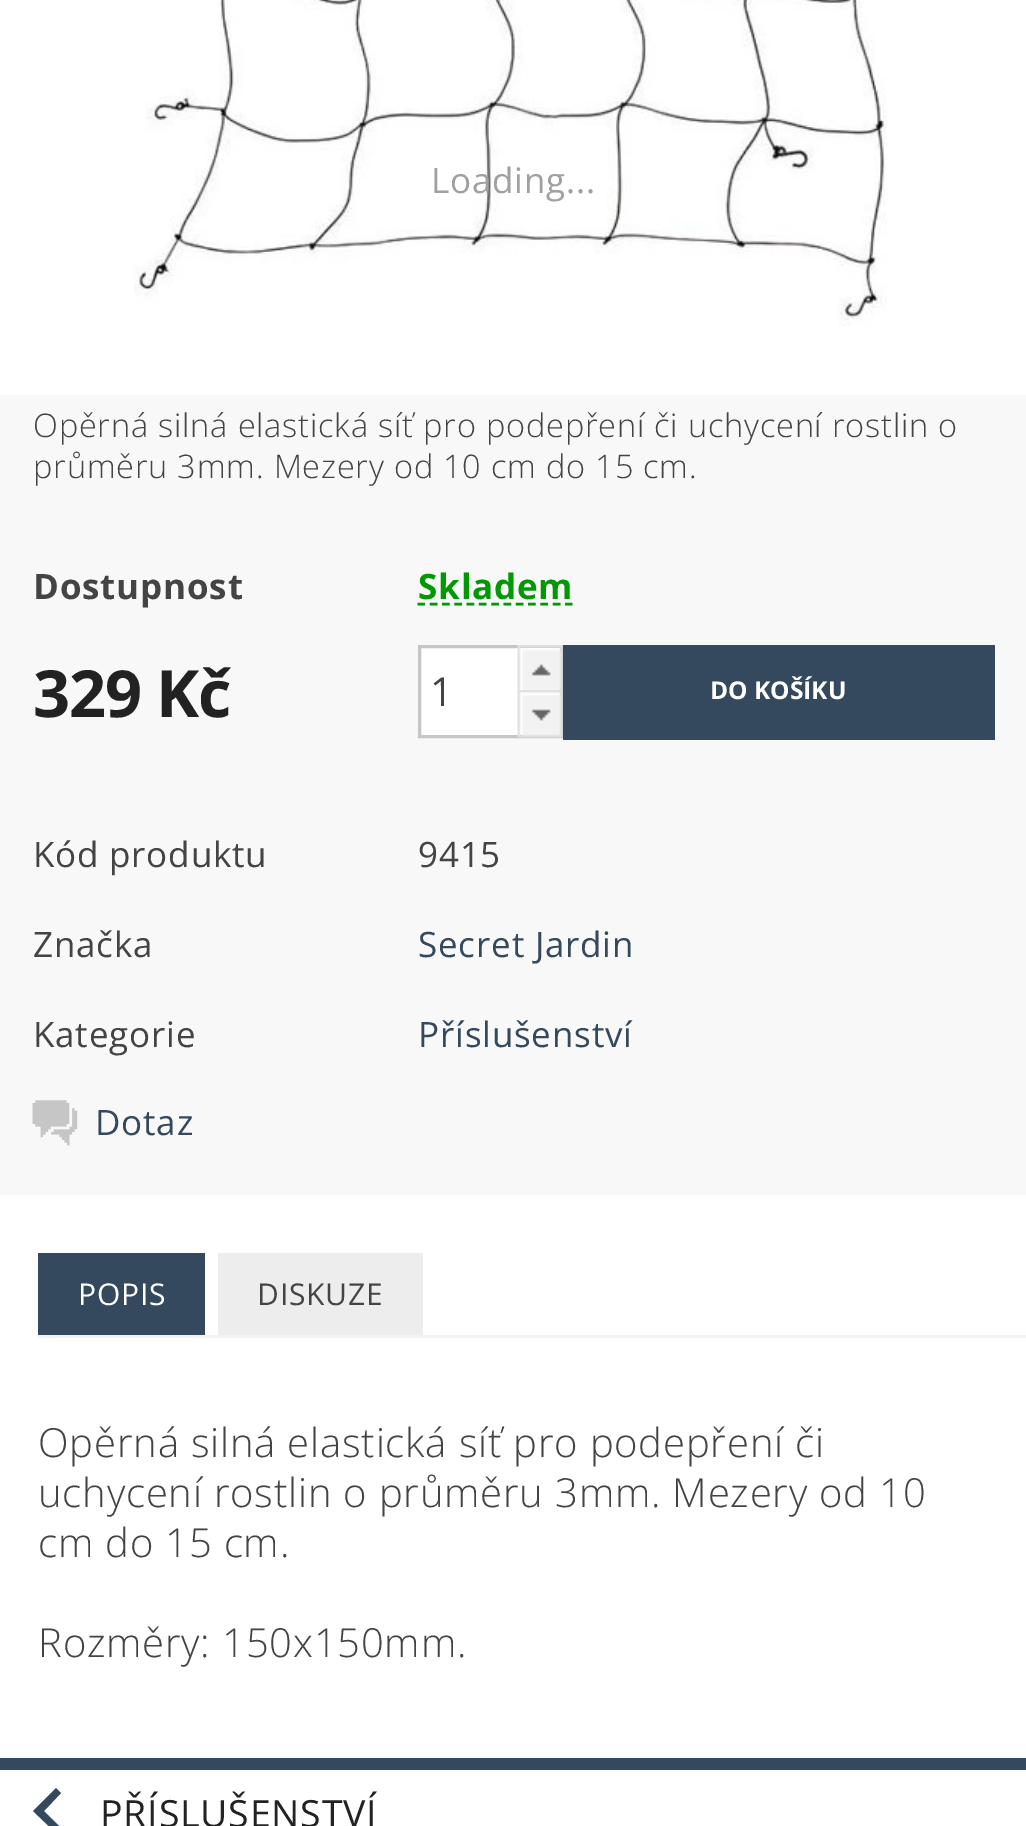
%!PS
<< /PageSize [1026 1826] >> setpagedevice
/rgb { dup -16 bitshift 255 div exch dup -8 bitshift 255 and 255 div exch 255 and 255 div setrgbcolor } def
/font { [ exch dup neg 0 0 3 -1 roll 0 0 ] selectfont } def
/text { moveto show } def
/picture { 5 dict begin { /h /w /y /x /name } { exch def } forall
  gsave x y translate w h scale
  w h 8 [w 0 0 h 0 0] name (r) file false 3 colorimage grestore end } def
0 1826 translate 1 -1 scale
4 setmiterlimit
/s1 { /OpenSans-Regular 40 font 16#444444 rgb } def
/s2 { /OpenSans-Bold 24.5 font 16#FFFFFF rgb } def
16#FFFFFF rgb
0 0 1026 1826 rectfill
(pic1.raw) 134 0 753 326 picture
/OpenSans-Regular 35 font
16#A0A0A0 rgb
431 193 moveto 0.8 0 (Loading...) ashow
16#F8F8F8 rgb
0 395 1026 800 rectfill
/OpenSans-Light 32.5 font
16#444444 rgb
33 437 moveto 0.8 0 (Opěrná silná elastická síť pro podepření či uchycení rostlin o) ashow
33 478 moveto 0.8 0 (průměru 3mm. Mezery od 10 cm do 15 cm.) ashow
/OpenSans-Bold 35 font
33 599 moveto 0.8 0 (Dostupnost) ashow
16#009901 rgb
2.5 setlinewidth
[7.5 4.8] 0 setdash
417.5 604 moveto 572.5 604 lineto stroke
418 599 moveto 0.8 0 (Skladem) ashow
/OpenSans-Bold 65 font
16#222222 rgb
33 717 moveto -1.25 0 (329 Kč) ashow
16#FFFFFF rgb
419.5 646.5 moveto 561.5 646.5 lineto 561.5 736.5 lineto 419.5 736.5 lineto closepath gsave fill grestore
16#C6C6C6 rgb
3 setlinewidth
[] 0 setdash
stroke
s1
(1) 430 706 text
(pic2.raw) 517 645 46 46 picture
(pic3.raw) 517 690 46 48 picture
16#34495E rgb
563 645 432 95 rectfill
s2
(DO KOŠÍKU) 710 699 text
/OpenSans-Regular 35 font
16#444444 rgb
33 867 moveto 0.8 0 (Kód produktu) ashow
418 867 moveto 0.8 0 (9415) ashow
33 957 moveto 0.8 0 (Značka) ashow
16#34495E rgb
418 957 moveto 0.8 0 (Secret Jardin) ashow
16#444444 rgb
33 1047 moveto 0.8 0 (Kategorie) ashow
16#34495E rgb
418 1047 moveto 0.8 0 (Příslušenství) ashow
(pic4.raw) 32 1100 46 46 picture
95 1135 moveto 0.8 0 (Dotaz) ashow
16#F2F2F2 rgb
38 1335 988 3 rectfill
16#34495E rgb
38 1253 167 82 rectfill
/OpenSans-Regular 30 font
16#FFFFFF rgb
78 1305 moveto 0.8 0 (POPIS) ashow
16#EDEDED rgb
218 1253 205 82 rectfill
16#444444 rgb
257 1305 moveto 0.8 0 (DISKUZE) ashow
/OpenSans-Light 40 font
38 1457 moveto 0.8 0 (Opěrná silná elastická síť pro podepření či) ashow
38 1507 moveto 0.8 0 (uchycení rostlin o průměru 3mm. Mezery od 10) ashow
38 1557 moveto 0.8 0 (cm do 15 cm.) ashow
38 1657 moveto 0.8 0 (Rozměry: 150x150mm.) ashow
16#34495E rgb
0 1758 1026 12 rectfill
56 1788 moveto 33 1811 lineto 56 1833 lineto 61 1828 lineto 44 1811 lineto 61 1793 lineto closepath fill
/OpenSans-Regular 37.5 font
16#222222 rgb
100 1827 moveto 0.8 0 (PŘÍSLUŠENSTVÍ) ashow
showpage
